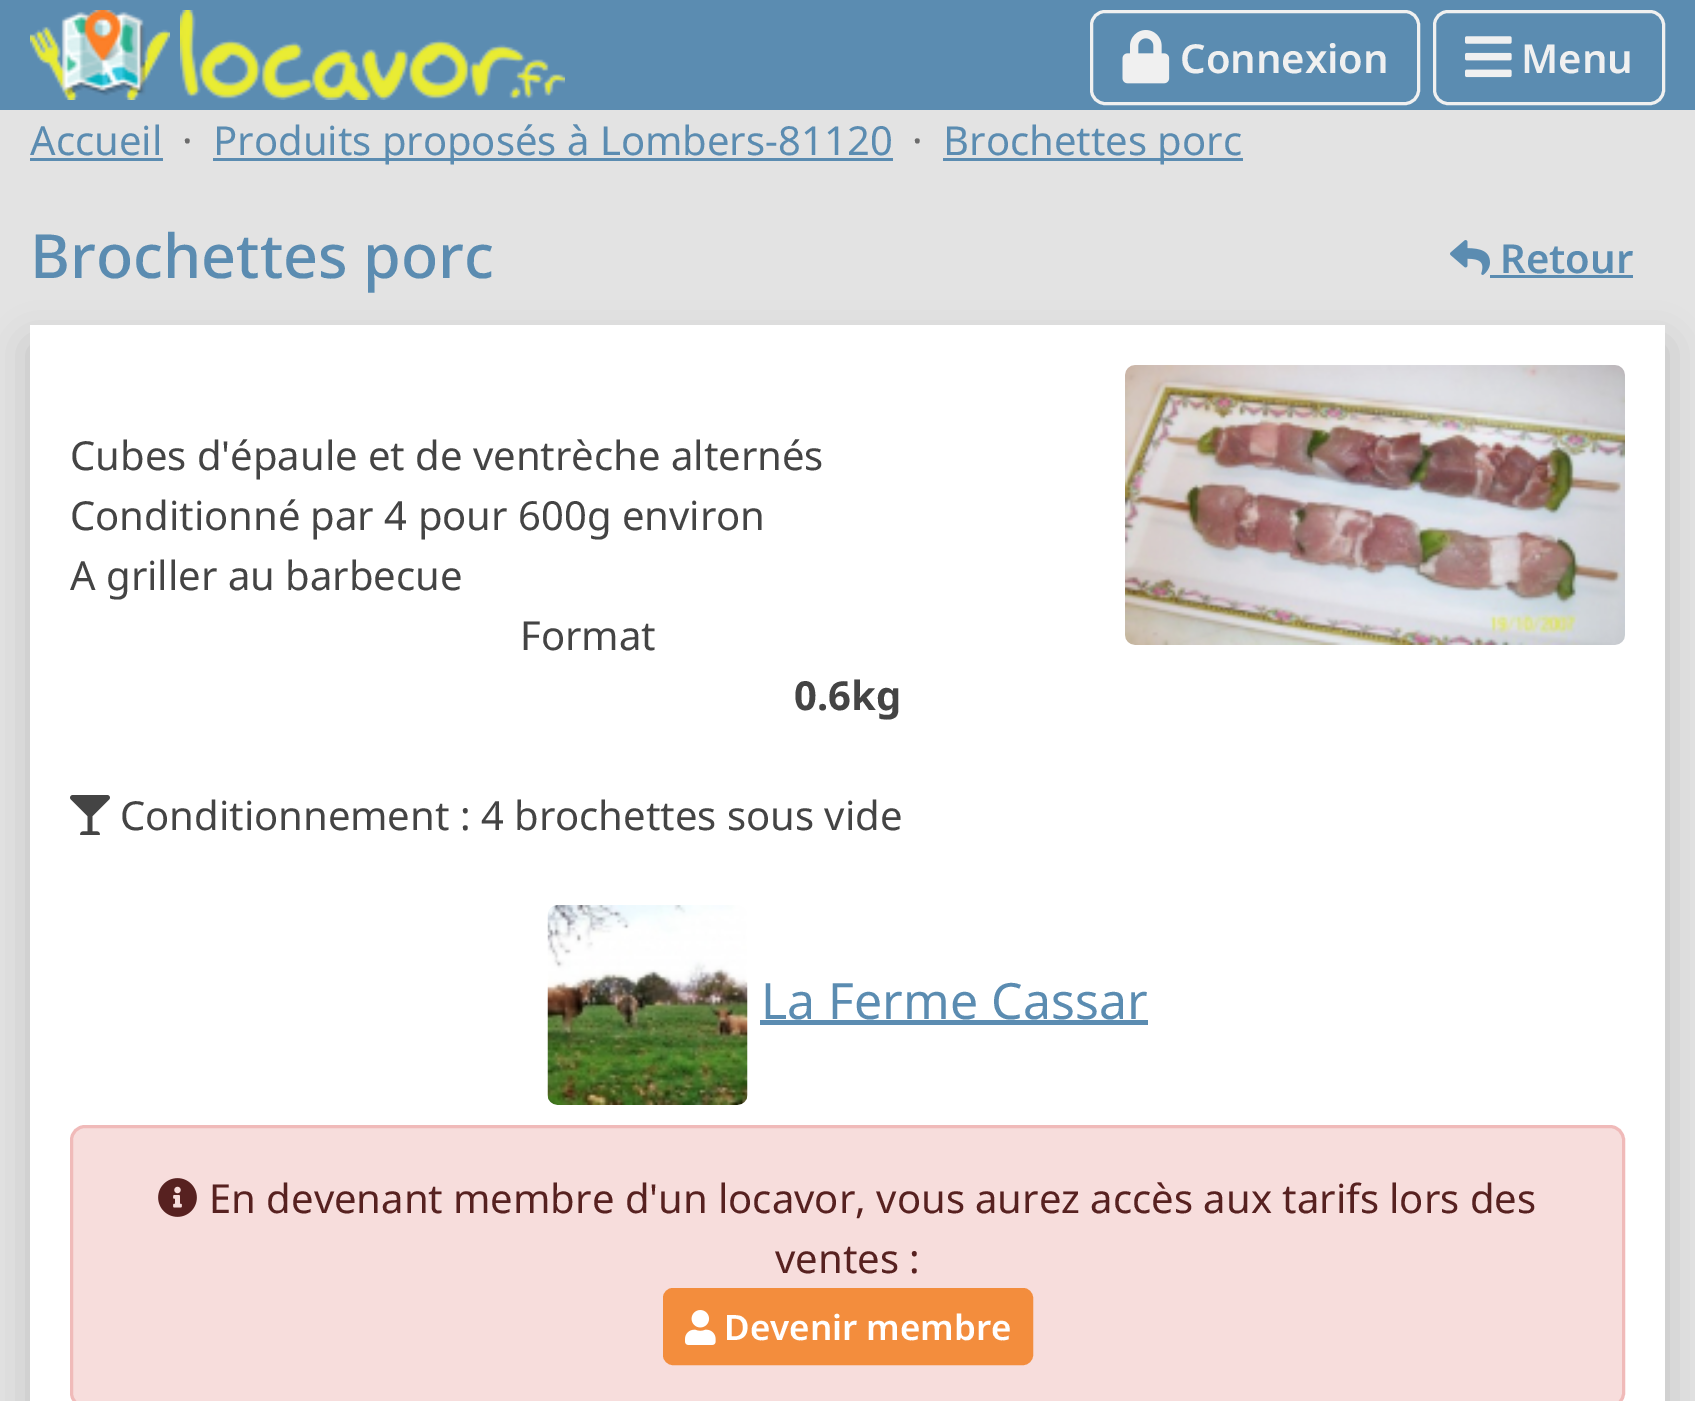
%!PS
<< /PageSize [1695 1401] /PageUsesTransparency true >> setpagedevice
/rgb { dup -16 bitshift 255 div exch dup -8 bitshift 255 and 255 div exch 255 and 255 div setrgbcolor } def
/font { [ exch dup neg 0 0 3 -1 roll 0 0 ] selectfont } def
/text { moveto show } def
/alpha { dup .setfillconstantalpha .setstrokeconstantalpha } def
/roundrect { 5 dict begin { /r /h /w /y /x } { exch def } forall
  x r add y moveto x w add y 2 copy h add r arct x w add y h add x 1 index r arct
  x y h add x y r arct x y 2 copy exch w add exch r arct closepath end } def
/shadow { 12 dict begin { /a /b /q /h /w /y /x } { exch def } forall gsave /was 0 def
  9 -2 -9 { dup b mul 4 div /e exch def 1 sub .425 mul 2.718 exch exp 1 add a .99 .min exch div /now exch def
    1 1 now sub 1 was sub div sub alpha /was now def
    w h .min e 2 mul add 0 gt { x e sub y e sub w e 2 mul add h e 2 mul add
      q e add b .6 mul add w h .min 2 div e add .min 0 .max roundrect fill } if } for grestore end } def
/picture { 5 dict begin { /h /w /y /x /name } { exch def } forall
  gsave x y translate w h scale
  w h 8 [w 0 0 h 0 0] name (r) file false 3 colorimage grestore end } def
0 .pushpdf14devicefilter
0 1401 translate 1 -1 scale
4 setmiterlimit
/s1 { /NotoSans-SemiBold 40 font 16#F0F0F0 rgb } def
/s2 { /NotoSans-Regular 40 font 16#5B8CB1 rgb } def
/s3 { /NotoSans-Regular 40 font 16#6C6C6C rgb } def
/s4 { /NotoSans-Medium 61 font 16#5B8CB1 rgb } def
/s5 { /NotoSans-SemiBold 40 font 16#5B8CB1 rgb } def
/s6 { /NotoSans-Regular 40 font 16#444444 rgb } def
/s7 { /NotoSans-Bold 40 font 16#444444 rgb } def
/s8 { /NotoSans-Regular 50 font 16#5B8CB1 rgb } def
/s9 { /NotoSans-Regular 40 font 16#572120 rgb } def
/s10 { /NotoSans-SemiBold 35 font 16#FFFFFF rgb } def
16#E3E3E3 rgb
0 0 1695 1401 rectfill
16#5B8CB1 rgb
0 0 1695 110 rectfill
(pic1.raw) 30 10 140 90 picture
(pic2.raw) 180 10 385 90 picture
16#F0F0F0 rgb
3 setlinewidth
1091.5 11.5 327 92 13.5 roundrect stroke
(pic3.raw) 1122 30 48 54 picture
s1
(Connexion) 1180 73 text
1434.5 11.5 229 92 13.5 roundrect stroke
(pic4.raw) 1465 36 47 42 picture
(Menu) 1521 73 text
s2
(Accueil) 30 155 text
30 158 133 3 rectfill
s3
(·) 182 155 text
16#5B8CB1 rgb
213 158 680 3 rectfill
(Produits proposés à Lombers-81120) 213 155 text
s3
(·) 912 155 text
16#5B8CB1 rgb
943 158 300 3 rectfill
(Brochettes porc) 943 155 text
16#000000 rgb
30 345 1635 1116 0 20 0.15 shadow
s4
(Brochettes porc) 30 278 text
(pic5.raw) 1450 240 40 35 picture
s5
(Retour) 1500 273 text
1490 275 143 3 rectfill
16#FFFFFF rgb
30 325 1635 1076 rectfill
s6
(Cubes d'épaule et de ventrèche alternés) 70 470 text
(Conditionné par 4 pour 600g environ) 70 530 text
(A griller au barbecue) 70 590 text
(Format) 520 650 text
s7
(0.6kg) 794 710 text
(pic6.raw) 70 795 40 40 picture
s6
(Conditionnement : 4 brochettes sous vide) 120 830 text
(pic7.raw) 1125 365 500 280 picture
(pic8.raw) 547 905 201 200 picture
s8
(La Ferme Cassar) 761 1019 text
760 1020 388 5 rectfill
16#F7DDDC rgb
71.5 1126.5 1552 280 13.5 roundrect gsave fill grestore
16#F0BAB9 rgb
stroke
(pic9.raw) 158 1178 39 39 picture
s9
(En devenant membre d'un locavor, vous aurez accès aux tarifs lors des) 209 1213 text
(ventes :) 775 1273 text
16#F38D3D rgb
664.5 1289.5 367 74 8.5 roundrect gsave fill grestore
stroke
(pic10.raw) 685 1310 31 35 picture
s10
(Devenir membre) 724 1340 text
.poppdf14devicefilter showpage
